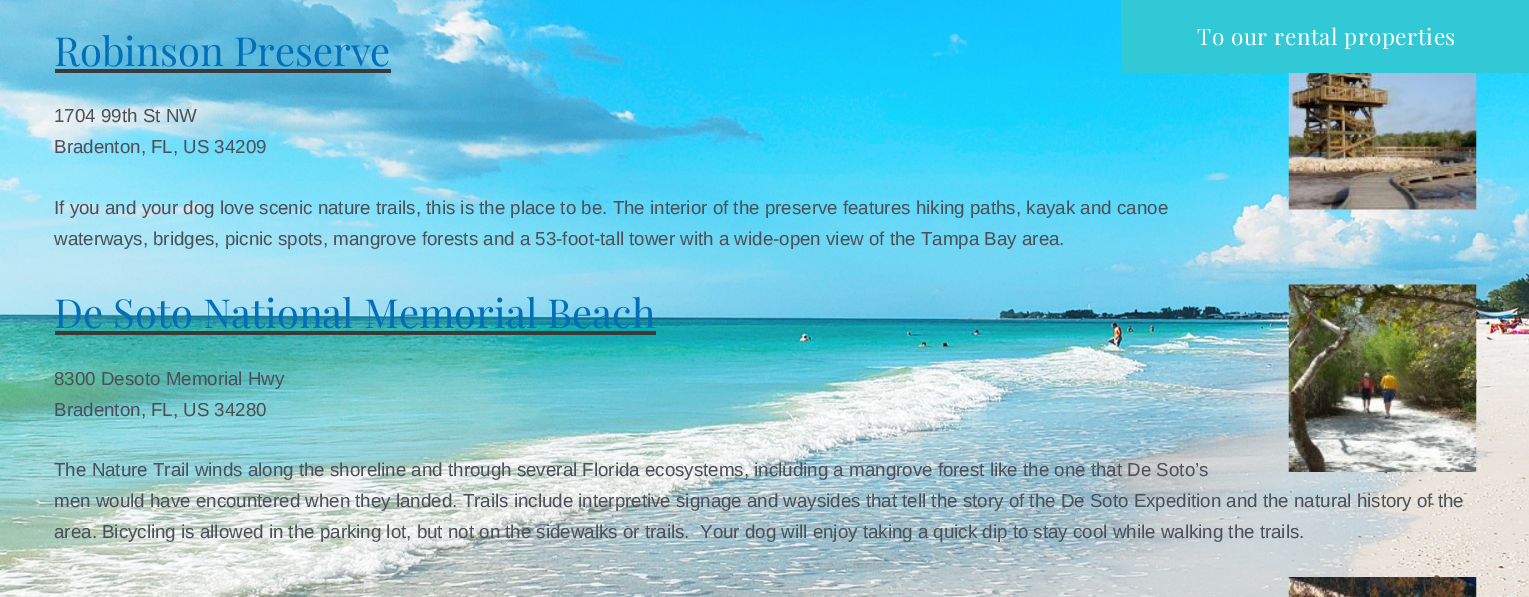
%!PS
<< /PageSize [1529 597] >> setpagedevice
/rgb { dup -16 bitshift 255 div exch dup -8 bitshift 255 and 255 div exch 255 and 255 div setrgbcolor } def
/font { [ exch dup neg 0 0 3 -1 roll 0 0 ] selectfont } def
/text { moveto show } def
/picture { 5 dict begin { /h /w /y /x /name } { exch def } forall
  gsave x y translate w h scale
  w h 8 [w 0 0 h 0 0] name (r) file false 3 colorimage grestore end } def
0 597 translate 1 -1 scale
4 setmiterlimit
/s1 { /PlayfairDisplay-Regular 40 font 16#0170B9 rgb } def
/s2 { /LiberationSans-Regular 18.75 font 16#4B4F58 rgb } def
16#FFFFFF rgb
0 0 1529 597 rectfill
(pic1.raw) 0 0 1529 597 picture
16#32C9D6 rgb
1121 0 408 73 rectfill
/PlayfairDisplay-Regular 22.5 font
16#FFFFFF rgb
1197 45 moveto 0.6 0 (To our rental properties) ashow
s1
(Robinson Preserve) 54 66 text
16#3A3A3A rgb
55 69 336 4 rectfill
(pic2.raw) 1288 73 189 137 picture
s2
(1704 99th St NW) 54 122 text
(Bradenton, FL, US 34209) 54 153 text
(If you and your dog love scenic nature trails, this is the place to be. The interior of the preserve features hiking paths, kayak and canoe) 54 214 text
(waterways, bridges, picnic spots, mangrove forests and a 53-foot-tall tower with a wide-open view of the Tampa Bay area.) 54 245 text
s1
(De Soto National Memorial Beach) 54 328 text
16#3A3A3A rgb
55 331 601 4 rectfill
(pic3.raw) 1288 284 189 188 picture
s2
(8300 Desoto Memorial Hwy) 54 385 text
(Bradenton, FL, US 34280) 54 416 text
(The Nature Trail winds along the shoreline and through several Florida ecosystems, including a mangrove forest like the one that De Soto’s) 54 476 text
(men would have encountered when they landed. Trails include interpretive signage and waysides that tell the story of the De Soto Expedition and the natural history of the) 54 507 text
(area. Bicycling is allowed in the parking lot, but not on the sidewalks or trails.  Your dog will enjoy taking a quick dip to stay cool while walking the trails.) 54 538 text
(pic4.raw) 1288 577 189 20 picture
showpage
